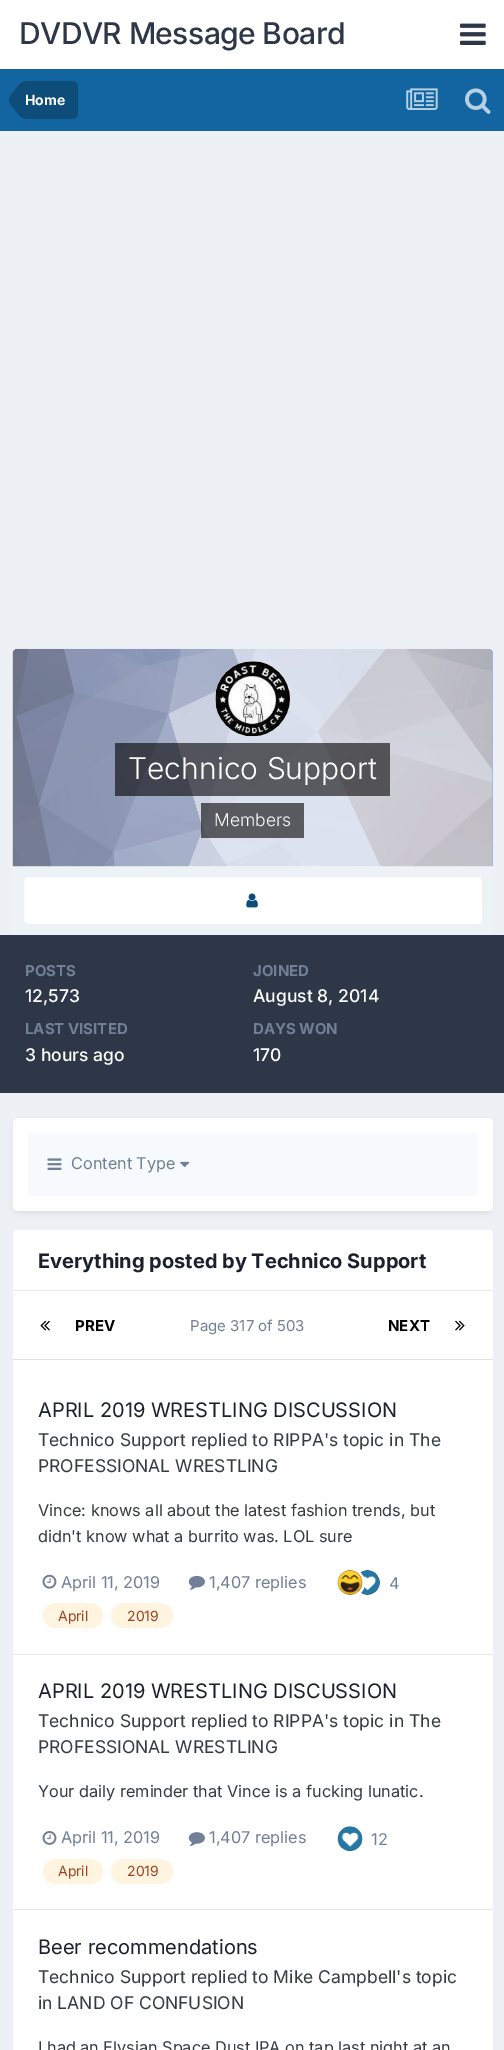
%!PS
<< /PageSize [504 2050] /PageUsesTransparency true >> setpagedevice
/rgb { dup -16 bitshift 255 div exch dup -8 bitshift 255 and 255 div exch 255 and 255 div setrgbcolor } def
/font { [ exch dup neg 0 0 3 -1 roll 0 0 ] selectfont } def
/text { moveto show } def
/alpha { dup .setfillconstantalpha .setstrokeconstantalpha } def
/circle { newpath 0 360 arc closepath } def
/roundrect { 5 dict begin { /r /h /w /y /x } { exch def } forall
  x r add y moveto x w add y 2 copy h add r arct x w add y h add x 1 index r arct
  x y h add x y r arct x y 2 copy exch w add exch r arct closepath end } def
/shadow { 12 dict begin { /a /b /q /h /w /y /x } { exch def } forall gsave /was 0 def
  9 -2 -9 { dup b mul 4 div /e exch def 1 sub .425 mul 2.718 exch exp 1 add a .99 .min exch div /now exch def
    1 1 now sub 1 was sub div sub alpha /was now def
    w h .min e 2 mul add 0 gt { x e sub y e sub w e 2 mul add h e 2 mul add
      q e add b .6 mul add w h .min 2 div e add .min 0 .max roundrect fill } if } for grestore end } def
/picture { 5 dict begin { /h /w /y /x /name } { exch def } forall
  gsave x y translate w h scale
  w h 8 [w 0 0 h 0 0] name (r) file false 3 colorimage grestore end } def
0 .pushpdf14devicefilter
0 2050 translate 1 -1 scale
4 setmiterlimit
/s1 { /Inter-Bold 14 font 16#FFFFFF rgb } def
/s2 { /Inter-Light 30 font 16#FFFFFF rgb } def
/s3 { /Inter-Light 17.5 font 16#FFFFFF rgb } def
/s4 { /Inter-Bold 15 font 16#718096 rgb } def
/s5 { /Inter-Medium 17.5 font 16#FFFFFF rgb } def
/s6 { /Inter-Regular 16.25 font 16#718096 rgb } def
/s7 { /Inter-Bold 20 font 16#1A202C rgb } def
/s8 { /Inter-Bold 15 font 16#000000 rgb } def
/s9 { /Inter-Regular 15 font 16#718096 rgb } def
/s10 { /Inter-Regular 20 font 16#1A202C rgb } def
/s11 { /Inter-Regular 17.5 font 16#353C41 rgb } def
/s12 { /Inter-Regular 16.25 font 16#353C41 rgb } def
/s13 { /Inter-Regular 14 font 16#9C4221 rgb } def
16#EDF0F4 rgb
0 0 504 2050 rectfill
16#FFFFFF rgb
0 0 504 69 rectfill
/Inter-Medium 30 font
16#2D3748 rgb
19 44 moveto -0.6 0 (DVDVR Message Board) ashow
(pic1.raw) 460 23 26 22 picture
16#1265A1 rgb
0 69 504 62 rectfill
16#0E4C79 rgb
25 81 moveto 72 81 lineto 75.5 81 78 83.5 78 87 curveto 78 113 lineto 78 116.5 75.5 119 72 119 curveto 25 119 lineto closepath fill
25 100 moveto 25 118.5 lineto 19.5 118.5 16.5 112 14 108.5 curveto 12 106 9 103.5 9 100 curveto closepath 25 100 moveto 9 100 lineto 9 96.5 12 94 14 91.5 curveto 16.5 88 19.5 81.5 25 81.5 curveto closepath fill
s1
(Home) 25 105 text
(pic2.raw) 406 88 32 22 picture
(pic3.raw) 465 88 26 26 picture
16#99B1FF rgb
18 649 moveto 488 649 lineto 491 649 493 651 493 654 curveto 493 866 lineto 13 866 lineto 13 654 lineto 13 651 15 649 18 649 curveto closepath fill
16#EDF2F7 rgb
13 866 480 69 rectfill
(pic4.raw) 12 648 481 219 picture
16#FFFFFF rgb
252.5 698.5 37.5 circle fill
(pic5.raw) 215 661 75 76 picture
0.6 alpha
16#000000 rgb
115 743 275 53 rectfill
1 alpha
s2
(Technico Support) 128 779 text
0.6 alpha
16#000000 rgb
201 803 103 35 rectfill
1 alpha
s3
(Members) 214 826 text
23 876 460 49 5 roundrect fill
0.07 alpha
16#0E4C79 rgb
23.5 876.5 459 48 4.5 roundrect stroke
1 alpha
(pic6.raw) 246 893 12 15 picture
16#2D3748 rgb
0 935 504 158 rectfill
s4
(POSTS) 25 976 text
s5
(12,573) 25 1002 text
s4
(JOINED) 253 976 text
s5
(August 8, 2014) 253 1002 text
s4
(LAST VISITED) 25 1034 text
s5
(3 hours ago) 25 1061 text
s4
(DAYS WON) 253 1034 text
s5
(170) 253 1061 text
16#2D3748 rgb
14 1121 477 92 4 2.5 0.1 shadow
16#FFFFFF rgb
13 1118 480 93 5 roundrect fill
16#F7FAFC rgb
28 1133 450 63 rectfill
(pic7.raw) 47 1158 15 12 picture
s6
(Content Type) 71 1169 text
(pic8.raw) 180 1161 10 6 picture
16#FFFFFF rgb
13 1230 480 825 5 roundrect fill
18 1230 moveto 488 1230 lineto 491 1230 493 1232 493 1235 curveto 493 1291 lineto 13 1291 lineto 13 1235 lineto 13 1232 15 1230 18 1230 curveto closepath fill
16#EAECEF rgb
13 1290 480 1 rectfill
s7
(Everything posted by Technico Support) 38 1268 text
16#E1E2E3 rgb
13 1359 480 1 rectfill
(pic9.raw) 40 1320 10 11 picture
s8
(PREV) 75 1331 text
s9
(Page 317 of 503) 190 1331 text
s8
(NEXT) 388 1331 text
(pic10.raw) 455 1320 10 11 picture
16#E6E6E6 rgb
13 1654 480 1 rectfill
s10
(APRIL 2019 WRESTLING DISCUSSION) 38 1417 text
s11
(Technico Support replied to RIPPA's topic in The) 38 1446 text
(PROFESSIONAL WRESTLING) 38 1472 text
s12
(Vince: knows all about the latest fashion trends, but) 38 1516 text
(didn't know what a burrito was. LOL sure) 38 1542 text
(pic11.raw) 42 1574 15 15 picture
s6
(April 11, 2019) 61 1588 text
(pic12.raw) 188 1575 17 15 picture
(1,407 replies) 209 1588 text
(pic14.raw) 358 1570 22 25 picture
16#FFFFFF rgb
3 setlinewidth
350 1583 13.5 circle stroke
(pic13.raw) 337 1570 26 25 picture
s6
(4) 389 1589 text
16#FFF4DF rgb
43 1603 60 25 12.5 roundrect fill
s13
(April) 58 1621 text
16#FFF4DF rgb
111 1603 62 25 12.5 roundrect fill
s13
(2019) 127 1621 text
16#E6E6E6 rgb
13 1909 480 1 rectfill
s10
(APRIL 2019 WRESTLING DISCUSSION) 38 1698 text
s11
(Technico Support replied to RIPPA's topic in The) 38 1727 text
(PROFESSIONAL WRESTLING) 38 1753 text
s12
(Your daily reminder that Vince is a fucking lunatic.) 38 1797 text
(pic15.raw) 42 1831 15 14 picture
s6
(April 11, 2019) 61 1843 text
(pic16.raw) 188 1832 17 14 picture
(1,407 replies) 209 1843 text
(pic17.raw) 337 1826 26 26 picture
(12) 371 1845 text
16#FFF4DF rgb
43 1859 60 25 12.5 roundrect fill
s13
(April) 58 1876 text
16#FFF4DF rgb
111 1859 62 25 12.5 roundrect fill
s13
(2019) 127 1876 text
s10
(Beer recommendations) 38 1954 text
s11
(Technico Support replied to Mike Campbell's topic) 38 1983 text
(in LAND OF CONFUSION) 38 2009 text
s12
(I had an Elysian Space Dust IPA on tap last night at an) 38 2053 text
.poppdf14devicefilter showpage
